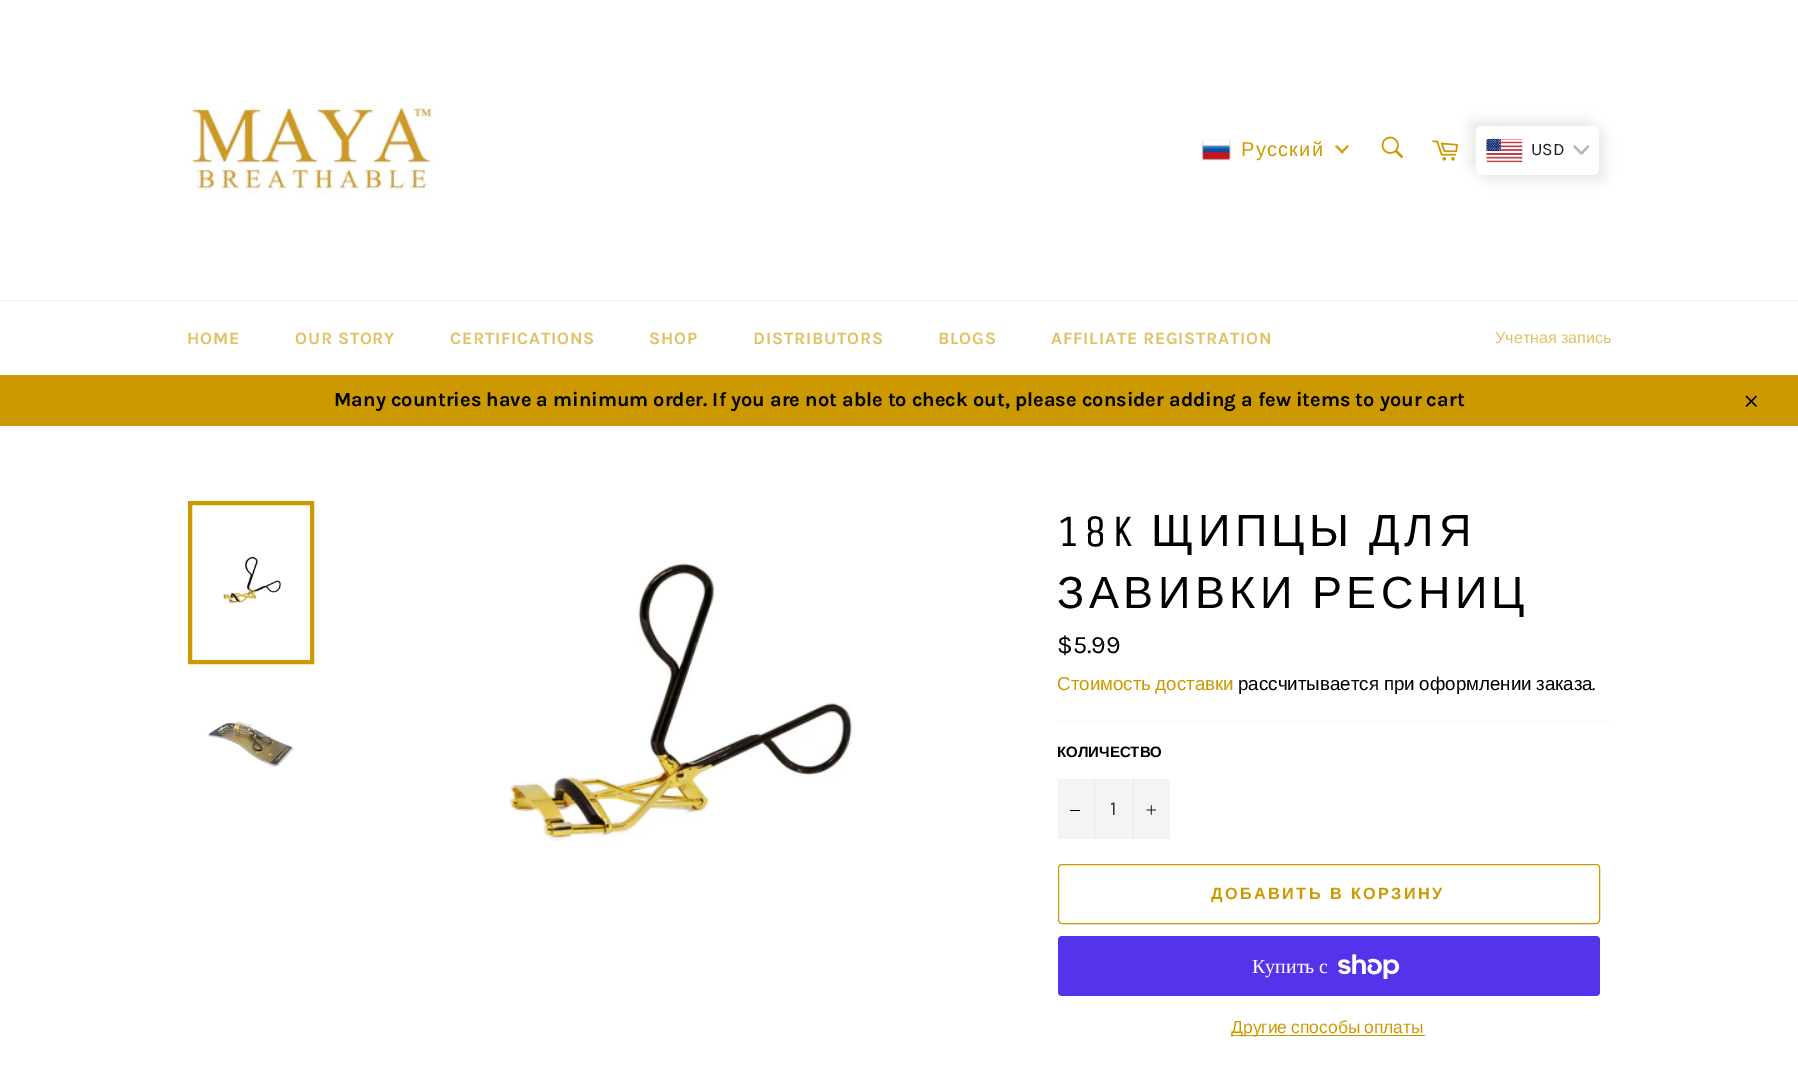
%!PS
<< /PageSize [1798 1082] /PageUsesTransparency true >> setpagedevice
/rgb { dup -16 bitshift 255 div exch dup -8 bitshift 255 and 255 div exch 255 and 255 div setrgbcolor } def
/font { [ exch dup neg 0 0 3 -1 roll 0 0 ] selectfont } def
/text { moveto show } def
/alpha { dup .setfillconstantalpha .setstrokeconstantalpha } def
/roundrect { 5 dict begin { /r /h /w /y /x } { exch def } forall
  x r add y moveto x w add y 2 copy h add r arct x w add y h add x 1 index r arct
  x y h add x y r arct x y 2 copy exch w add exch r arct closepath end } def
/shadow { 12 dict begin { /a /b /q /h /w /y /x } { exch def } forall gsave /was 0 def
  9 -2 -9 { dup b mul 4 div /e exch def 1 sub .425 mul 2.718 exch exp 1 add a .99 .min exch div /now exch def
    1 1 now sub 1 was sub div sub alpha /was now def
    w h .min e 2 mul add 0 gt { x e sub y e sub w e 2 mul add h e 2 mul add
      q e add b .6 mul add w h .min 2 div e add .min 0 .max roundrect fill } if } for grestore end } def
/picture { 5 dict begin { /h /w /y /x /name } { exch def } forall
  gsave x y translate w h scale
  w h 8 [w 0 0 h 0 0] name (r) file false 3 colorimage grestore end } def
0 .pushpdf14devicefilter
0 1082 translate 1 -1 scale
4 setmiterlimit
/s1 { /Karla-Regular 17.5 font 16#1E1E1E rgb } def
/s2 { /Karla-Bold 20 font 16#000000 rgb } def
/s3 { /Karla-Regular 25 font 16#000000 rgb } def
/s4 { /Karla-Regular 18.75 font 16#000000 rgb } def
/s5 { /LiberationSans-Bold 15 font 16#000000 rgb } def
/s6 { /Karla-Regular 20 font 16#333333 rgb } def
/s7 { /LiberationSerif-Regular 20 font 16#FFFFFF rgb } def
16#FFFFFF rgb
0 0 1798 1082 rectfill
(pic1.raw) 187 104 251 91 picture
(pic2.raw) 1202 139 29 22 picture
/LiberationSans-Regular 20 font
16#CC9900 rgb
1241 156 moveto 1.25 0 (Русский) ashow
16#D1A31A rgb
1347.5 145 moveto 1349 146.5 lineto 1342 153.5 lineto 1340.5 152 lineto closepath fill
1337 145 moveto 1344 152 lineto 1342 153.5 lineto 1335 146.5 lineto closepath fill
(pic3.raw) 1381 136 23 23 picture
(pic4.raw) 1432 140 26 21 picture
16#E8E8E8 rgb
1470 120 123 49 6 6 1 shadow
1483 133 122 48 6 6 1 shadow
16#FFFFFF rgb
1476 126 123 49 6 roundrect fill
(pic5.raw) 1486 138 37 25 picture
s1
(USD) 1531 155 text
16#B7B7B7 rgb
2.3 setlinewidth
1 setlinecap
1 setlinejoin
1574.5 146.5 moveto 1581.5 153.5 lineto 1588 146.5 lineto stroke
16#F2F2F2 rgb
0 300 1798 1 rectfill
/Karla-Bold 17.5 font
16#E0C266 rgb
187 344 moveto 0.75 0 (HOME) ashow
295 344 moveto 0.75 0 (OUR STORY) ashow
450 344 moveto 0.75 0 (CERTIFICATIONS) ashow
649 344 moveto 0.75 0 (SHOP) ashow
753 344 moveto 0.75 0 (DISTRIBUTORS) ashow
938 344 moveto 0.75 0 (BLOGS) ashow
1051 344 moveto 0.75 0 (AFFILIATE REGISTRATION) ashow
/LiberationSans-Regular 16.25 font
1495 343 moveto -1 0 32 (Учетная запись) widthshow
16#CC9900 rgb
0 375 1798 51 rectfill
s2
(Many countries have a minimum order. If you are not able to check out, please consider adding a few items to your cart) 334 406 text
(pic6.raw) 1745 395 12 12 picture
(pic7.raw) 223 556 58 48 picture
16#CC9900 rgb
4 setlinewidth
0 setlinecap
0 setlinejoin
190 503 122 159 rectstroke
(pic8.raw) 207 721 87 46 picture
(pic9.raw) 509 561 343 281 picture
/UnicaOne-Regular 45 font
16#000000 rgb
1057 546 moveto 4.5 0 (18K) ashow
/LiberationSans-Regular 45 font
1151 546 moveto -1 0 32 4.5 0 (ЩИПЦЫ ДЛЯ) awidthshow
1057 608 moveto -2 0 32 4.5 0 (ЗАВИВКИ РЕСНИЦ) awidthshow
s3
($5.99) 1057 653 text
/LiberationSans-Regular 18.75 font
16#CC9900 rgb
1057 690 moveto -1 0 32 (Стоимость доставки) widthshow
16#000000 rgb
1238 690 moveto -0.5 0 32 (рассчитывается при оформлении заказа) widthshow
s4
(.) 1592 690 text
16#F7F7F7 rgb
1058 721 555 1 rectfill
s5
(КОЛИЧЕСТВО) 1057 757 text
16#F4F4F4 rgb
1058 779 112 60 rectfill
16#E7E7E7 rgb
1094 779 1 60 rectfill
16#000000 rgb
1070 810 10 1 rectfill
s6
(1) 1110 815 text
16#E7E7E7 rgb
1133 779 1 60 rectfill
(pic10.raw) 1146 805 10 10 picture
16#CC9900 rgb
1 setlinewidth
1058.5 864.5 541 59 3.5 roundrect stroke
/LiberationSans-Bold 16.25 font
1211 899 moveto 2.4 0 (ДОБАВИТЬ В КОРЗИНУ) ashow
16#5433EB rgb
1058 936 542 60 4 roundrect fill
s7
(Купить) 1252 973 text
(с) 1319 973 text
(pic11.raw) 1338 954 62 25 picture
16#CC9900 rgb
1231 1035 194 1 rectfill
/LiberationSans-Regular 17.5 font
1231 1033 moveto -1 0 32 (Другие способы оплаты) widthshow
.poppdf14devicefilter showpage
